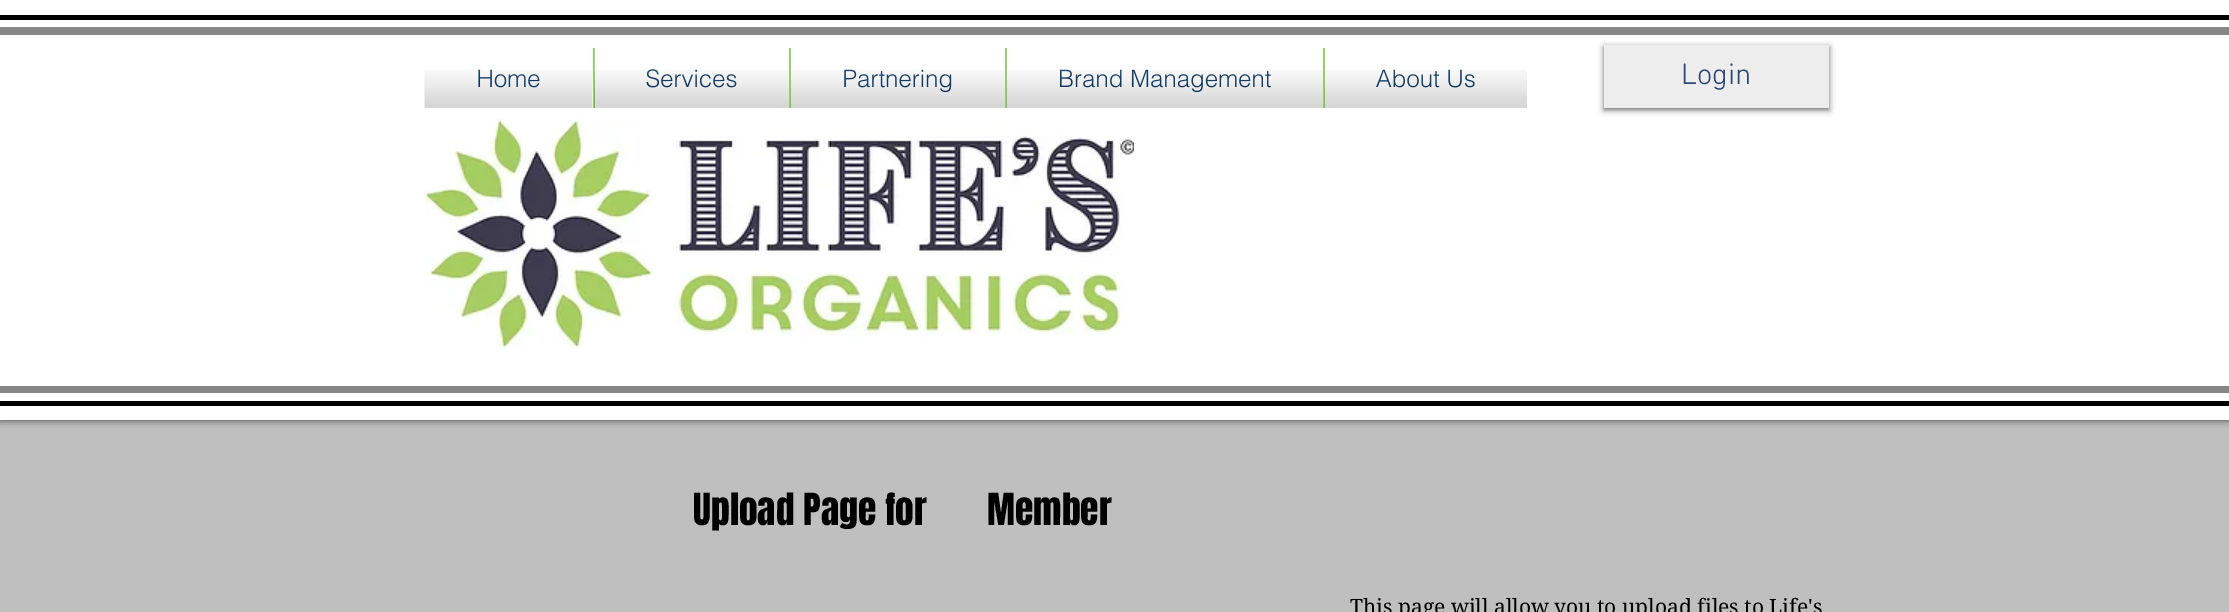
%!PS
<< /PageSize [2229 612] /PageUsesTransparency true >> setpagedevice
/rgb { dup -16 bitshift 255 div exch dup -8 bitshift 255 and 255 div exch 255 and 255 div setrgbcolor } def
/font { [ exch dup neg 0 0 3 -1 roll 0 0 ] selectfont } def
/text { moveto show } def
/alpha { dup .setfillconstantalpha .setstrokeconstantalpha } def
/roundrect { 5 dict begin { /r /h /w /y /x } { exch def } forall
  x r add y moveto x w add y 2 copy h add r arct x w add y h add x 1 index r arct
  x y h add x y r arct x y 2 copy exch w add exch r arct closepath end } def
/shadow { 12 dict begin { /a /b /q /h /w /y /x } { exch def } forall gsave /was 0 def
  9 -2 -9 { dup b mul 4 div /e exch def 1 sub .425 mul 2.718 exch exp 1 add a .99 .min exch div /now exch def
    1 1 now sub 1 was sub div sub alpha /was now def
    w h .min e 2 mul add 0 gt { x e sub y e sub w e 2 mul add h e 2 mul add
      q e add b .6 mul add w h .min 2 div e add .min 0 .max roundrect fill } if } for grestore end } def
/picture { 5 dict begin { /h /w /y /x /name } { exch def } forall
  gsave x y translate w h scale
  w h 8 [w 0 0 h 0 0] name (r) file false 3 colorimage grestore end } def
0 .pushpdf14devicefilter
0 612 translate 1 -1 scale
4 setmiterlimit
/s1 { /helvetica-Light 24 font 16#002E5D rgb } def
/s2 { /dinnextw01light-Light 30 font 16#2E4672 rgb } def
/s3 { /Anton-Regular 37.5 font 16#000000 rgb } def
/s4 { /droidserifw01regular-Regular 21 font 16#000000 rgb } def
16#BFBFBF rgb
0 0 2229 612 rectfill
16#000000 rgb
0 0 2229 420 0 4 0.7 shadow
16#FFFFFF rgb
0 0 2229 420 rectfill
16#000000 rgb
0 15 2229 5 rectfill
0 401 2229 5 rectfill
16#878787 rgb
0 27 2229 8 rectfill
0 386 2229 7 rectfill
(pic1.raw) 424 88 1 20 picture
s1
(Home) 476 87 text
(pic2.raw) 478 69 62 19 picture
(pic3.raw) 424 70 169 38 picture
16#8FD169 rgb
593 48 2 60 rectfill
s1
(Services) 645 87 text
(pic4.raw) 594 48 143 47 picture
(pic5.raw) 594 70 195 38 picture
16#8FD169 rgb
789 48 2 60 rectfill
s1
(Partnering) 842 87 text
(pic6.raw) 790 48 162 44 picture
(pic7.raw) 790 70 215 38 picture
16#8FD169 rgb
1005 48 2 60 rectfill
s1
(Brand Management) 1058 87 text
(pic8.raw) 1006 48 265 44 picture
(pic9.raw) 1006 70 317 38 picture
16#8FD169 rgb
1323 48 2 60 rectfill
s1
(About Us) 1376 87 text
(pic10.raw) 1324 48 151 40 picture
(pic11.raw) 1324 70 203 38 picture
16#000000 rgb
1604 47 225 63 0 3 0.6 shadow
16#EDEDED rgb
1604 45 225 63 rectfill
s2
(Login) 1681 84 text
(pic12.raw) 424 119 710 229 picture
s3
(Upload Page for) 693 525 text
(Member) 987 525 text
s4
(This page will allow you to upload files to Life's) 1350 614 text
.poppdf14devicefilter showpage
